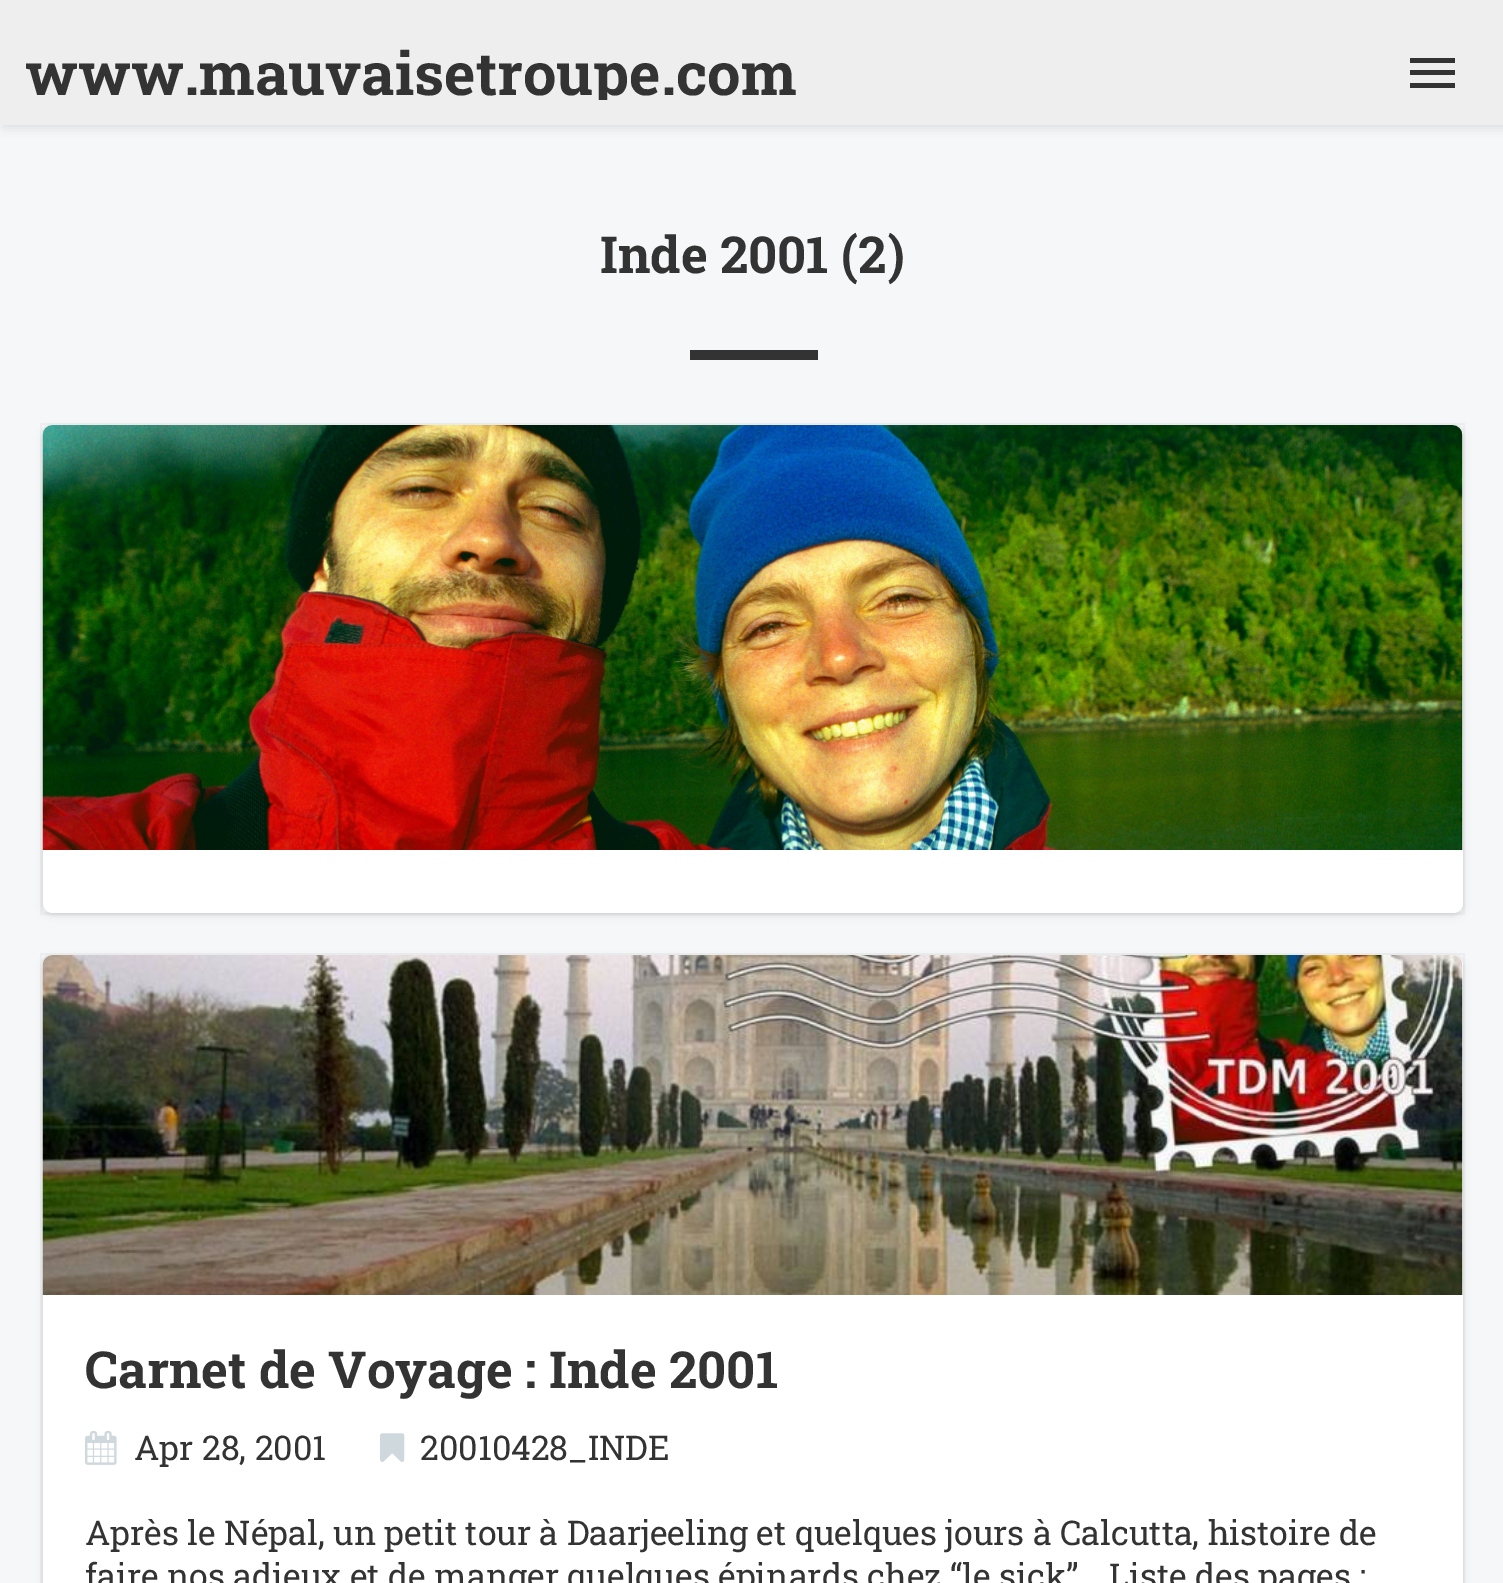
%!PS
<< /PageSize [1503 1583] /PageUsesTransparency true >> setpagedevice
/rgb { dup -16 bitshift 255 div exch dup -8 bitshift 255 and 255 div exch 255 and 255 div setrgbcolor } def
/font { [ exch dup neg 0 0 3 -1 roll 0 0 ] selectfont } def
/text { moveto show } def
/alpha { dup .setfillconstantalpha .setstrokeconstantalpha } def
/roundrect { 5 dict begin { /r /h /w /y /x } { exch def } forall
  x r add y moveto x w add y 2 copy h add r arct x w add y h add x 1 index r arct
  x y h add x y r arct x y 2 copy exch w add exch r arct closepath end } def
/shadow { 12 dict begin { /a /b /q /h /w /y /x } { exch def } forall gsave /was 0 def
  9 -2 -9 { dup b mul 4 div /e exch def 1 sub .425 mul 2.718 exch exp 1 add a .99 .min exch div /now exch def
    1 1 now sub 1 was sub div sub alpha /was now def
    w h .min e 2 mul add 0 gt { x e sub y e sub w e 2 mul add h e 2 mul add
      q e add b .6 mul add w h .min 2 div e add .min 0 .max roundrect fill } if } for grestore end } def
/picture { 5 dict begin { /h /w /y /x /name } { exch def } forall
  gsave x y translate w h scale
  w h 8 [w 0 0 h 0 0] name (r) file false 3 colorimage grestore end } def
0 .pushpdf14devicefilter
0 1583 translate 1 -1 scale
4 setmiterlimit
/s1 { /RobotoSlab-Bold 59.5 font 16#333333 rgb } def
/s2 { /RobotoSlab-Bold 51 font 16#333333 rgb } def
/s3 { /RobotoSlab-Regular 34 font 16#333333 rgb } def
16#F6F7F8 rgb
0 0 1503 1583 rectfill
16#000000 rgb
3 3 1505 125 0 5 0.1 shadow
16#EEEEEE rgb
0 0 1503 125 rectfill
s1
(www.mauvaisetroupe.com) 25 95 text
1410 70 45 5 rectfill
1410 58 45 5 rectfill
1410 83 45 5 rectfill
16#EEEEEE rgb
594 100 18 8 rectfill
s2
(Inde 2001 \(2\)) 600 273 text
690 350 128 10 rectfill
16#000000 rgb
43 428 1420 487 10 2.5 0.05 shadow
16#3F3F44 rgb
43 428 1420 487 10 4 0.1 shadow
0.05 alpha
3 setlinewidth
41.5 424.5 1422 489 rectstroke
1 alpha
16#FFFFFF rgb
43 425 1420 488 10 roundrect fill
(pic1.raw) 42 425 1421 425 picture
16#000000 rgb
43 958 1420 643 10 2.5 0.05 shadow
16#3F3F44 rgb
43 958 1420 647 10 4 0.1 shadow
0.05 alpha
41.5 954.5 1422 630 rectstroke
1 alpha
16#FFFFFF rgb
43 955 1420 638 10 roundrect fill
(pic2.raw) 42 955 1421 340 picture
s2
(Carnet de Voyage : Inde 2001) 85 1388 text
(pic3.raw) 85 1430 32 35 picture
s3
(Apr 28, 2001) 134 1460 text
(pic4.raw) 380 1433 25 29 picture
(20010428_INDE) 420 1460 text
(Après le Népal, un petit tour à Daarjeeling et quelques jours à Calcutta, histoire de) 85 1545 text
(faire nos adieux et de manger quelques épinards chez “le sick”… Liste des pages :) 85 1588 text
.poppdf14devicefilter showpage
